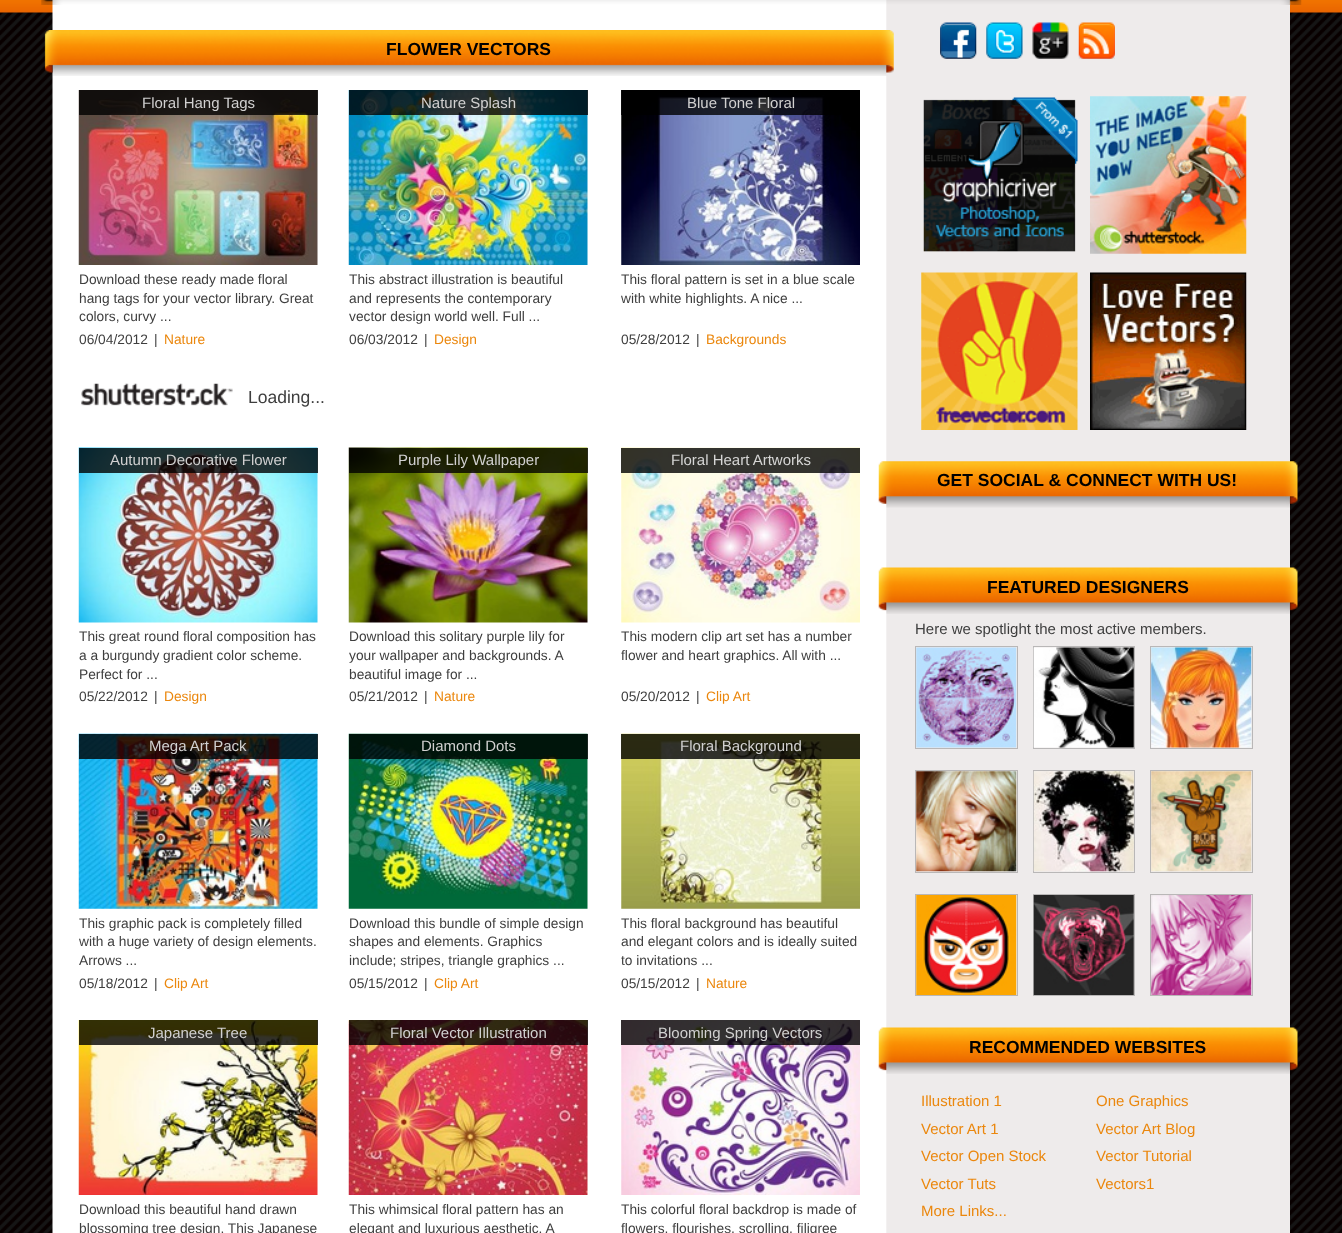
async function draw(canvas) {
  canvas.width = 1342;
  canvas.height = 1233;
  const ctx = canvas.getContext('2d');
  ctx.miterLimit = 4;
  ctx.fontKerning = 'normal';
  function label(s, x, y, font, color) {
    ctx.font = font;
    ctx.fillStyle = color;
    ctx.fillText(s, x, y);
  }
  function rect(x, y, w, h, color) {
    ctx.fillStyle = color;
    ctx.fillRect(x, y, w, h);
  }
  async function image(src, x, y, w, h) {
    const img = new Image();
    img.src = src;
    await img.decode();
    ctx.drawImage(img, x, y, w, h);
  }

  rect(0, 0, 1342, 1233, '#fff');
  await image('assets/img1.png', 0, 12, 1342, 1221);
  await image('assets/img2.png', 0, 0, 1342, 13);
  await image('assets/img3.png', 41, 0, 1261, 5);
  await image('assets/img4.png', 52, 5, 1238, 1228);
  await image('assets/img5.png', 44, 30, 850, 46);
  label('FLOWER VECTORS', 386, 55, 'bold 17.5px Liberation Sans', '#000');
  await image('assets/img6.png', 78, 90, 240, 175);
  rect(79, 90, 239, 25, '#000000cc');
  label('Floral Hang Tags', 142, 108, '15px Liberation Sans', '#d1d0d0');
  label('Download these ready made floral', 79, 284, '13.75px Liberation Sans', '#3e3e3e');
  label('hang tags for your vector library. Great', 79, 303, '13.75px Liberation Sans', '#3e3e3e');
  label('colors, curvy ...', 79, 321, '13.75px Liberation Sans', '#3e3e3e');
  label('06/04/2012', 79, 344, '13.75px Liberation Sans', '#3e3e3e');
  label('|', 154, 344, '13.75px Liberation Sans', '#3e3e3e');
  label('Nature', 164, 344, '13.75px Liberation Sans', '#eb870d');
  await image('assets/img7.png', 348, 90, 240, 175);
  rect(349, 90, 239, 25, '#000000cc');
  label('Nature Splash', 421, 108, '15px Liberation Sans', '#d1d0d0');
  label('This abstract illustration is beautiful', 349, 284, '13.75px Liberation Sans', '#3e3e3e');
  label('and represents the contemporary', 349, 303, '13.75px Liberation Sans', '#3e3e3e');
  label('vector design world well. Full ...', 349, 321, '13.75px Liberation Sans', '#3e3e3e');
  label('06/03/2012', 349, 344, '13.75px Liberation Sans', '#3e3e3e');
  label('|', 424, 344, '13.75px Liberation Sans', '#3e3e3e');
  label('Design', 434, 344, '13.75px Liberation Sans', '#eb870d');
  await image('assets/img8.png', 621, 90, 239, 175);
  rect(621, 90, 220, 25, '#000000cc');
  label('Blue Tone Floral', 687, 108, '15px Liberation Sans', '#d1d0d0');
  label('This floral pattern is set in a blue scale', 621, 284, '13.75px Liberation Sans', '#3e3e3e');
  label('with white highlights. A nice ...', 621, 303, '13.75px Liberation Sans', '#3e3e3e');
  label('05/28/2012', 621, 344, '13.75px Liberation Sans', '#3e3e3e');
  label('|', 696, 344, '13.75px Liberation Sans', '#3e3e3e');
  label('Backgrounds', 706, 344, '13.75px Liberation Sans', '#eb870d');
  await image('assets/img9.png', 81, 383, 152, 23);
  label('Loading...', 248, 403, '17.5px Liberation Sans', '#3e3e3e');
  await image('assets/img10.png', 78, 447, 240, 176);
  rect(79, 448, 239, 25, '#000000cc');
  label('Autumn Decorative Flower', 110, 465, '15px Liberation Sans', '#d1d0d0');
  label('This great round floral composition has', 79, 641, '13.75px Liberation Sans', '#3e3e3e');
  label('a a burgundy gradient color scheme.', 79, 660, '13.75px Liberation Sans', '#3e3e3e');
  label('Perfect for ...', 79, 679, '13.75px Liberation Sans', '#3e3e3e');
  label('05/22/2012', 79, 701, '13.75px Liberation Sans', '#3e3e3e');
  label('|', 154, 701, '13.75px Liberation Sans', '#3e3e3e');
  label('Design', 164, 701, '13.75px Liberation Sans', '#eb870d');
  await image('assets/img11.png', 348, 447, 240, 176);
  rect(349, 448, 239, 25, '#000000cc');
  label('Purple Lily Wallpaper', 398, 465, '15px Liberation Sans', '#d1d0d0');
  label('Download this solitary purple lily for', 349, 641, '13.75px Liberation Sans', '#3e3e3e');
  label('your wallpaper and backgrounds. A', 349, 660, '13.75px Liberation Sans', '#3e3e3e');
  label('beautiful image for ...', 349, 679, '13.75px Liberation Sans', '#3e3e3e');
  label('05/21/2012', 349, 701, '13.75px Liberation Sans', '#3e3e3e');
  label('|', 424, 701, '13.75px Liberation Sans', '#3e3e3e');
  label('Nature', 434, 701, '13.75px Liberation Sans', '#eb870d');
  await image('assets/img12.png', 621, 447, 239, 176);
  rect(621, 448, 239, 25, '#000000cc');
  label('Floral Heart Artworks', 671, 465, '15px Liberation Sans', '#d6d6d5');
  label('This modern clip art set has a number', 621, 641, '13.75px Liberation Sans', '#3e3e3e');
  label('flower and heart graphics. All with ...', 621, 660, '13.75px Liberation Sans', '#3e3e3e');
  label('05/20/2012', 621, 701, '13.75px Liberation Sans', '#3e3e3e');
  label('|', 696, 701, '13.75px Liberation Sans', '#3e3e3e');
  label('Clip Art', 706, 701, '13.75px Liberation Sans', '#eb870d');
  await image('assets/img13.png', 78, 733, 240, 176);
  rect(79, 734, 239, 25, '#000000cc');
  label('Mega Art Pack', 149, 751, '15px Liberation Sans', '#d1d0d0');
  label('This graphic pack is completely filled', 79, 928, '13.75px Liberation Sans', '#3e3e3e');
  label('with a huge variety of design elements.', 79, 946, '13.75px Liberation Sans', '#3e3e3e');
  label('Arrows ...', 79, 965, '13.75px Liberation Sans', '#3e3e3e');
  label('05/18/2012', 79, 988, '13.75px Liberation Sans', '#3e3e3e');
  label('|', 154, 988, '13.75px Liberation Sans', '#3e3e3e');
  label('Clip Art', 164, 988, '13.75px Liberation Sans', '#eb870d');
  await image('assets/img14.png', 348, 733, 240, 176);
  rect(349, 734, 239, 25, '#000000cc');
  label('Diamond Dots', 421, 751, '15px Liberation Sans', '#d1d0d0');
  label('Download this bundle of simple design', 349, 928, '13.75px Liberation Sans', '#3e3e3e');
  label('shapes and elements. Graphics', 349, 946, '13.75px Liberation Sans', '#3e3e3e');
  label('include; stripes, triangle graphics ...', 349, 965, '13.75px Liberation Sans', '#3e3e3e');
  label('05/15/2012', 349, 988, '13.75px Liberation Sans', '#3e3e3e');
  label('|', 424, 988, '13.75px Liberation Sans', '#3e3e3e');
  label('Clip Art', 434, 988, '13.75px Liberation Sans', '#eb870d');
  await image('assets/img15.png', 621, 733, 239, 176);
  rect(621, 734, 239, 25, '#000000cc');
  label('Floral Background', 680, 751, '15px Liberation Sans', '#d1d0d0');
  label('This floral background has beautiful', 621, 928, '13.75px Liberation Sans', '#3e3e3e');
  label('and elegant colors and is ideally suited', 621, 946, '13.75px Liberation Sans', '#3e3e3e');
  label('to invitations ...', 621, 965, '13.75px Liberation Sans', '#3e3e3e');
  label('05/15/2012', 621, 988, '13.75px Liberation Sans', '#3e3e3e');
  label('|', 696, 988, '13.75px Liberation Sans', '#3e3e3e');
  label('Nature', 706, 988, '13.75px Liberation Sans', '#eb870d');
  await image('assets/img16.png', 78, 1020, 240, 175);
  rect(79, 1020, 239, 25, '#000000cc');
  label('Japanese Tree', 148, 1038, '15px Liberation Sans', '#d1d0d0');
  label('Download this beautiful hand drawn', 79, 1214, '13.75px Liberation Sans', '#3e3e3e');
  label('blossoming tree design. This Japanese', 79, 1233, '13.75px Liberation Sans', '#3e3e3e');
  await image('assets/img17.png', 348, 1020, 240, 175);
  rect(349, 1020, 239, 25, '#000000cc');
  label('Floral Vector Illustration', 390, 1038, '15px Liberation Sans', '#d1d0d0');
  label('This whimsical floral pattern has an', 349, 1214, '13.75px Liberation Sans', '#3e3e3e');
  label('elegant and luxurious aesthetic. A', 349, 1233, '13.75px Liberation Sans', '#3e3e3e');
  await image('assets/img18.png', 621, 1020, 239, 175);
  rect(621, 1020, 239, 25, '#000000cc');
  label('Blooming Spring Vectors', 658, 1038, '15px Liberation Sans', '#d1d0d0');
  label('This colorful floral backdrop is made of', 621, 1214, '13.75px Liberation Sans', '#3e3e3e');
  label('flowers, flourishes, scrolling, filigree', 621, 1233, '13.75px Liberation Sans', '#3e3e3e');
  await image('assets/img19.png', 940, 22, 37, 37);
  await image('assets/img20.png', 986, 22, 37, 37);
  await image('assets/img21.png', 1032, 22, 37, 37);
  await image('assets/img22.png', 1078, 22, 37, 37);
  await image('assets/img23.png', 923, 97, 155, 155);
  await image('assets/img24.png', 1090, 96, 157, 158);
  await image('assets/img25.png', 921, 272, 157, 158);
  await image('assets/img26.png', 1090, 272, 157, 158);
  await image('assets/img27.png', 878, 461, 420, 47);
  label('GET SOCIAL & CONNECT WITH US!', 937, 486, 'bold 17.5px Liberation Sans', '#000');
  await image('assets/img28.png', 878, 567, 420, 47);
  label('FEATURED DESIGNERS', 987, 593, 'bold 17.5px Liberation Sans', '#000');
  label('Here we spotlight the most active members.', 915, 634, '15px Liberation Sans', '#3e3e3e');
  ctx.strokeStyle = '#b9b7b7';
  ctx.strokeRect(915.5, 646.5, 102, 102);
  ctx.strokeRect(1033.5, 646.5, 101, 102);
  ctx.strokeRect(1150.5, 646.5, 102, 102);
  await image('assets/img29.png', 916, 647, 101, 101);
  await image('assets/img30.png', 1033, 647, 101, 101);
  await image('assets/img31.png', 1151, 647, 101, 101);
  ctx.strokeRect(915.5, 770.5, 102, 102);
  ctx.strokeRect(1033.5, 770.5, 101, 102);
  ctx.strokeRect(1150.5, 770.5, 102, 102);
  await image('assets/img32.png', 916, 771, 101, 101);
  await image('assets/img33.png', 1033, 771, 101, 101);
  await image('assets/img34.png', 1151, 771, 101, 101);
  ctx.strokeRect(915.5, 894.5, 102, 101);
  ctx.strokeRect(1033.5, 894.5, 101, 101);
  ctx.strokeRect(1150.5, 894.5, 102, 101);
  await image('assets/img35.png', 916, 895, 101, 100);
  await image('assets/img36.png', 1033, 895, 101, 100);
  await image('assets/img37.png', 1151, 895, 101, 100);
  await image('assets/img28.png', 878, 1027, 420, 47);
  label('RECOMMENDED WEBSITES', 969, 1053, 'bold 17.5px Liberation Sans', '#000');
  label('Illustration 1', 921, 1106, '15px Liberation Sans', '#eb870d');
  label('One Graphics', 1096, 1106, '15px Liberation Sans', '#eb870d');
  label('Vector Art 1', 921, 1134, '15px Liberation Sans', '#eb870d');
  label('Vector Art Blog', 1096, 1134, '15px Liberation Sans', '#eb870d');
  label('Vector Open Stock', 921, 1161, '15px Liberation Sans', '#eb870d');
  label('Vector Tutorial', 1096, 1161, '15px Liberation Sans', '#eb870d');
  label('Vector Tuts', 921, 1189, '15px Liberation Sans', '#eb870d');
  label('Vectors1', 1096, 1189, '15px Liberation Sans', '#eb870d');
  label('More Links...', 921, 1216, '15px Liberation Sans', '#eb870d');
}

draw(document.querySelector('canvas'));
